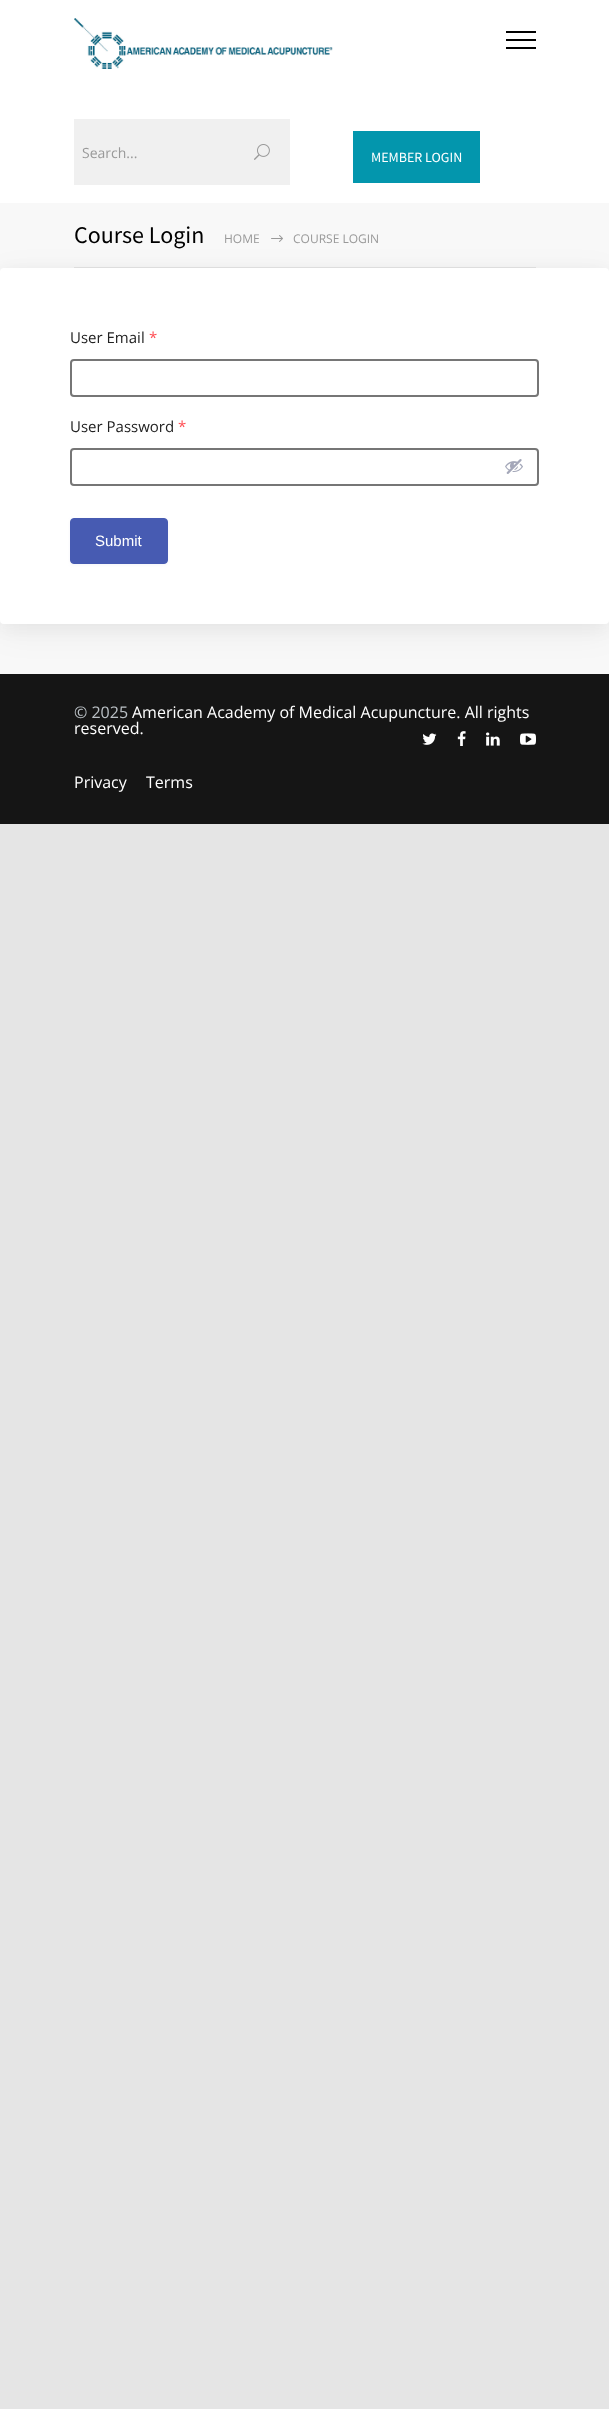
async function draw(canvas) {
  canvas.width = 609;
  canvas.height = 2409;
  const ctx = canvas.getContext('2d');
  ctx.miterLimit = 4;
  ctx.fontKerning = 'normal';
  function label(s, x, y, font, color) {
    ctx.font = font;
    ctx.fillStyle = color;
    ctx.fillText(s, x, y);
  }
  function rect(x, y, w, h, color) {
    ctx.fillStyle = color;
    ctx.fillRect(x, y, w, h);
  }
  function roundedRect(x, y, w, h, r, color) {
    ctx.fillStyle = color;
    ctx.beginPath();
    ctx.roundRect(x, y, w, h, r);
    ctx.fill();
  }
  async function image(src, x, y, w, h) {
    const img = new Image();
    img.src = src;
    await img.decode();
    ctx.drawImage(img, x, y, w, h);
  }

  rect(0, 0, 609, 2409, '#e5e5e5');
  rect(0, 203, 609, 471, '#f8f8f8');
  rect(0, 0, 609, 203, '#fff');
  await image('assets/img1.png', 74, 18, 259, 51);
  rect(506, 31, 30, 2, '#000');
  rect(506, 39, 30, 2, '#000');
  rect(506, 47, 30, 2, '#000');
  rect(74, 119, 216, 66, '#f0f0f0');
  label('Search...', 82, 158, '14px Open Sans', '#999');
  await image('assets/img2.png', 254, 144, 16, 16);
  rect(353, 131, 127, 52, '#0396ad');
  label('MEMBER LOGIN', 371, 162, '14px Source Sans Pro', '#fff');
  rect(74, 267, 462, 1, '#e5e5e5');
  rect(0, 674, 609, 150, '#151515');
  ctx.fillStyle = '#11111a0d';
  ctx.filter = 'blur(16px)';
  ctx.beginPath();
  ctx.roundRect(0, 276, 609, 356, 4);
  ctx.fill();
  ctx.filter = 'none';
  ctx.filter = 'blur(8px)';
  ctx.beginPath();
  ctx.roundRect(0, 272, 609, 356, 4);
  ctx.fill();
  ctx.filter = 'none';
  label('Course Login', 74, 243, '24px Source Sans Pro', '#000');
  label('HOME', 224, 243, '12px Open Sans', '#999');
  await image('assets/img3.png', 271, 235, 12, 7);
  label('COURSE LOGIN', 293, 243, '12px Open Sans', '#999');
  roundedRect(0, 268, 609, 356, 4, '#fff');
  label('User Email', 70, 343, '15px Open Sans', '#222');
  label('*', 149, 343, '15px Open Sans', '#ff4f55');
  ctx.beginPath();
  ctx.roundRect(71, 360, 467, 36, 3);
  ctx.strokeStyle = '#767676';
  ctx.lineWidth = 2;
  ctx.stroke();
  label('User Password', 70, 432, '15px Open Sans', '#222');
  label('*', 178, 432, '15px Open Sans', '#ff4f55');
  ctx.beginPath();
  ctx.roundRect(71, 449, 467, 36, 3);
  ctx.stroke();
  await image('assets/img4.png', 505, 459, 18, 15);
  ctx.fillStyle = '#b6bbcf26';
  ctx.filter = 'blur(1.5px)';
  ctx.beginPath();
  ctx.roundRect(70, 519, 98, 46, 4);
  ctx.fill();
  ctx.filter = 'none';
  ctx.fillStyle = '#475bb2';
  ctx.beginPath();
  ctx.roundRect(70.5, 518.5, 97, 45, 3.5);
  ctx.fill();
  ctx.strokeStyle = '#475bb2';
  ctx.lineWidth = 1;
  ctx.stroke();
  label('Submit', 95, 546, '15px Liberation Sans', '#fff');
  label('© 2025', 74, 718, '16px Open Sans', '#bac0c5');
  label('American Academy of Medical Acupuncture. All rights', 132, 718, '16px Open Sans', '#fff');
  label('reserved.', 74, 734, '16px Open Sans', '#fff');
  await image('assets/img5.png', 422, 733, 15, 12);
  await image('assets/img6.png', 457, 731, 9, 15);
  await image('assets/img7.png', 486, 732, 14, 14);
  await image('assets/img8.png', 520, 733, 16, 12);
  label('Privacy', 74, 788, '16px Open Sans', '#fff');
  label('Terms', 146, 788, '16px Open Sans', '#fff');
}

draw(document.querySelector('canvas'));
